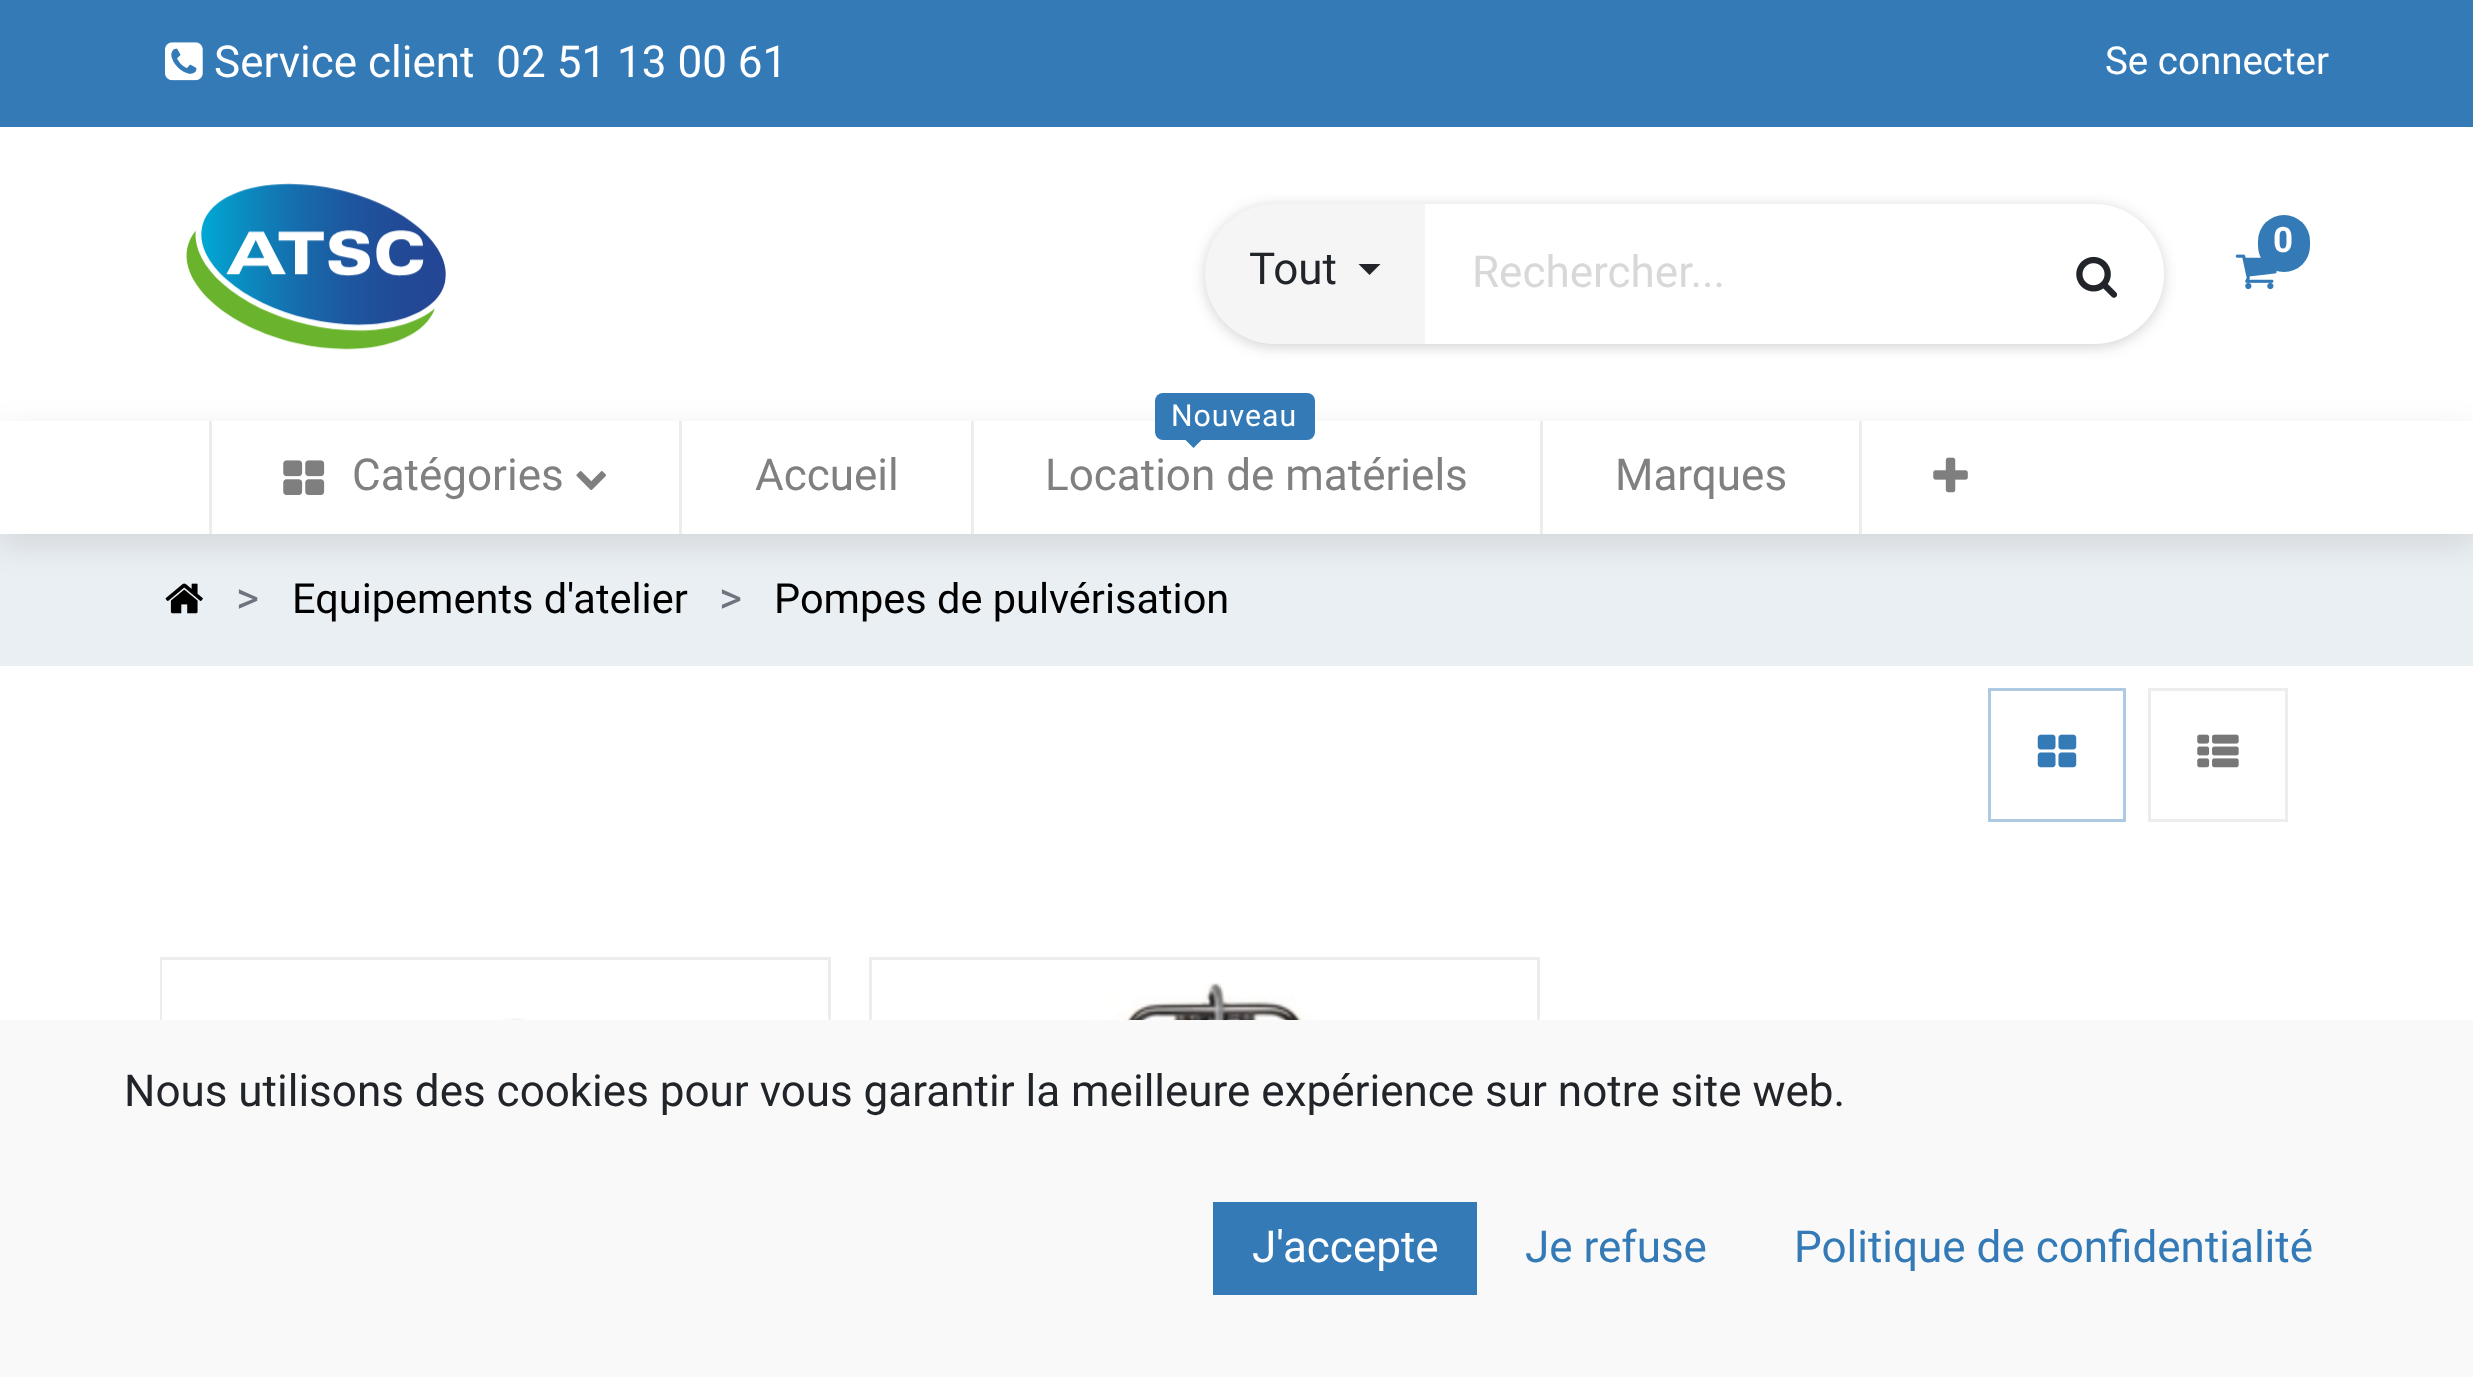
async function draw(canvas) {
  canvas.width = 2473;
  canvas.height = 1377;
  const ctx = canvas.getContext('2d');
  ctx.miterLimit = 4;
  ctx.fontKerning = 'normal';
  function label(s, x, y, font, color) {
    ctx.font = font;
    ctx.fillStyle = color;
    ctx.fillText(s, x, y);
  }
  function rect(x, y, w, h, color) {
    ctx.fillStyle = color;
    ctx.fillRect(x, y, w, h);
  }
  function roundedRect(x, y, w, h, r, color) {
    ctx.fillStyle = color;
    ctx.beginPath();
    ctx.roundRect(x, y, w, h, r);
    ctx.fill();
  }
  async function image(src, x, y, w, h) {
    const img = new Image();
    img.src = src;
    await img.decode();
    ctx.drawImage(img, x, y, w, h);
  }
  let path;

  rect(0, 0, 2473, 1377, '#fff');
  rect(0, 0, 2473, 127, '#337ab7');
  await image('assets/img1.png', 165, 42, 38, 39);
  label('Service client  02 51 13 00 61', 214, 77, '44px Roboto', '#fff');
  label('Se connecter', 2105, 74, '38.5px Roboto', '#fff');
  await image('assets/img2.png', 186, 183, 260, 167);
  await image('assets/img3.png', 2235, 254, 42, 36);
  roundedRect(2258, 215, 52, 57, 26, '#337ab7');
  label('0', 2273, 252, 'bold 35px Roboto', '#fff');
  ctx.fillStyle = '#20212433';
  ctx.filter = 'blur(7px)';
  ctx.beginPath();
  ctx.roundRect(1205, 206, 959, 141, 70.5);
  ctx.fill();
  ctx.filter = 'none';
  ctx.fillStyle = '#f5f5f5';
  ctx.beginPath();
  ctx.roundRect(1205, 204, 220, 140, [70, 0, 0, 70]);
  ctx.fill();
  label('Tout', 1249, 284, '44px Roboto', '#212529');
  path = new Path2D('M1358.5 264H1380.5L1369.5 275Z');
  ctx.fill(path);
  ctx.fillStyle = '#fff';
  ctx.beginPath();
  ctx.roundRect(1425, 204, 739, 140, [0, 70, 70, 0]);
  ctx.fill();
  label('Rechercher...', 1472, 287, '44px Roboto', '#d8d8d8');
  await image('assets/img4.png', 2076, 256, 42, 42);
  rect(0, 534, 2473, 132, '#eaeff3');
  await image('assets/img8.png', 165, 583, 38, 31);
  ctx.fillStyle = '#0000001a';
  ctx.filter = 'blur(16.5px)';
  ctx.beginPath();
  ctx.rect(0, 432, 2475, 113);
  ctx.fill();
  ctx.filter = 'none';
  rect(0, 421, 2473, 113, '#fff');
  rect(209, 421, 3, 113, '#ededed');
  await image('assets/img5.png', 283, 460, 42, 35);
  label('Catégories', 352, 490, '44px Roboto', '#808080');
  await image('assets/img6.png', 576, 471, 30, 19);
  rect(679, 421, 3, 113, '#ededed');
  label('Accueil', 755, 490, '44px Roboto', '#808080');
  rect(971, 421, 3, 113, '#ededed');
  roundedRect(1155, 393, 160, 47, 8, '#337ab7');
  ctx.letterSpacing = '1px';
  label('Nouveau', 1171, 426, '30.25px Roboto', '#fff');
  ctx.fillStyle = '#337ab7';
  path = new Path2D('M1182.5 437H1204.5L1193.5 448Z');
  ctx.fill(path);
  ctx.letterSpacing = '0px';
  label('Location de matériels', 1045, 490, '44px Roboto', '#808080');
  rect(1540, 421, 3, 113, '#ededed');
  label('Marques', 1615, 490, '44px Roboto', '#808080');
  rect(1859, 421, 3, 113, '#ededed');
  await image('assets/img7.png', 1933, 457, 35, 36);
  label('>', 236, 613, '44px Roboto', '#6c757d');
  label('Equipements d\'atelier', 292, 613, '41.5px Roboto', '#000');
  label('>', 719, 613, '44px Roboto', '#6c757d');
  label('Pompes de pulvérisation', 774, 613, '41.5px Roboto', '#000');
  ctx.strokeStyle = '#adcae2';
  ctx.lineWidth = 3;
  ctx.strokeRect(1989.5, 689.5, 135, 131);
  await image('assets/img9.png', 2037, 734, 40, 34);
  ctx.strokeStyle = '#ededed';
  ctx.strokeRect(2149.5, 689.5, 137, 131);
  await image('assets/img10.png', 2197, 734, 42, 34);
  ctx.strokeRect(161.5, 958.5, 668, 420);
  rect(162, 960, 1, 60, '#fff');
  await image('assets/img11.png', 222, 1018, 544, 2);
  ctx.strokeRect(870.5, 958.5, 668, 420);
  await image('assets/img12.png', 1076, 982, 257, 38);
  rect(0, 1020, 2473, 357, '#f9f9f9');
  label('Nous utilisons des cookies pour vous garantir la meilleure expérience sur notre site web.', 124, 1106, '44px Roboto', '#212529');
  rect(1213, 1202, 264, 93, '#337ab7');
  label('J\'accepte', 1252, 1262, '44px Roboto', '#fff');
  label('Je refuse', 1525, 1262, '44px Roboto', '#337ab7');
  label('Politique de confidentialité', 1794, 1262, '44px Roboto', '#337ab7');
}

draw(document.querySelector('canvas'));
